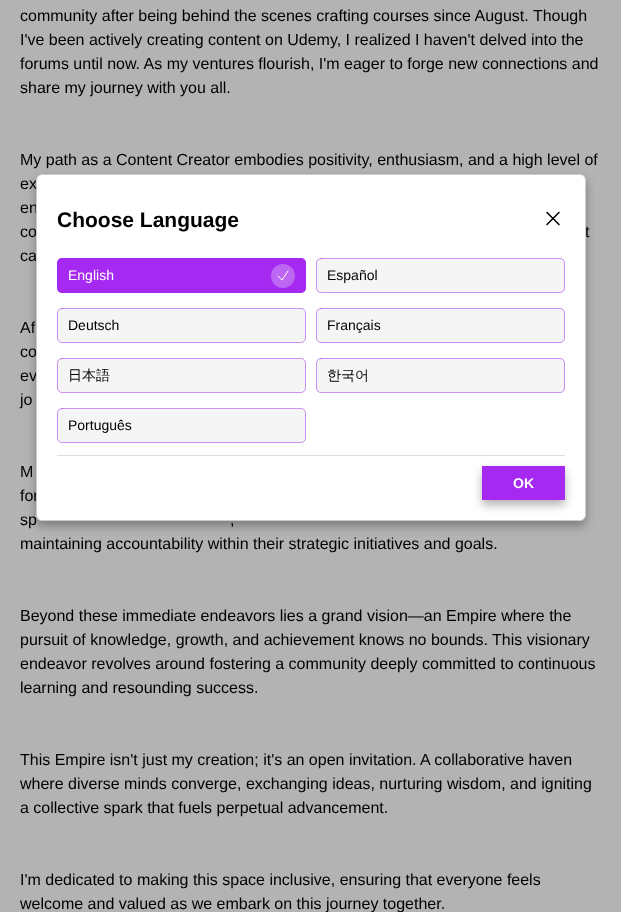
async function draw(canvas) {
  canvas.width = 621;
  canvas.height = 912;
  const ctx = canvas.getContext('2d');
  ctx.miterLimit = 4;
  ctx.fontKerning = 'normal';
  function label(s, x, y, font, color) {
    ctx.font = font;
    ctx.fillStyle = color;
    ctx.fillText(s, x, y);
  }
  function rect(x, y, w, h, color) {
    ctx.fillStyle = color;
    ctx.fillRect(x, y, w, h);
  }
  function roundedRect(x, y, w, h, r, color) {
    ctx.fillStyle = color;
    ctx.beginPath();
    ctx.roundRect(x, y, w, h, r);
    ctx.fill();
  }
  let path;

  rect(0, 0, 621, 912, '#b3b3b3');
  label('community after being behind the scenes crafting courses since August. Though', 20, 21, '16px Liberation Sans', '#000');
  label('I\'ve been actively creating content on Udemy, I realized I haven\'t delved into the', 20, 45, '16px Liberation Sans', '#000');
  label('forums until now. As my ventures flourish, I\'m eager to forge new connections and', 20, 69, '16px Liberation Sans', '#000');
  label('share my journey with you all.', 20, 93, '16px Liberation Sans', '#000');
  label('My path as a Content Creator embodies positivity, enthusiasm, and a high level of', 20, 165, '16px Liberation Sans', '#000');
  label('ex', 20, 189, '16px Liberation Sans', '#000');
  label('en', 20, 213, '16px Liberation Sans', '#000');
  label('co', 20, 237, '16px Liberation Sans', '#000');
  label('t', 585, 237, '16px Liberation Sans', '#000');
  label('ca', 20, 261, '16px Liberation Sans', '#000');
  label('Af', 20, 333, '16px Liberation Sans', '#000');
  label('co', 20, 357, '16px Liberation Sans', '#000');
  label('ev', 20, 381, '16px Liberation Sans', '#000');
  label('jo', 20, 405, '16px Liberation Sans', '#000');
  label('M', 20, 477, '16px Liberation Sans', '#000');
  label('for', 20, 501, '16px Liberation Sans', '#000');
  label('sp', 20, 525, '16px Liberation Sans', '#000');
  label(',', 230, 525, '16px Liberation Sans', '#000');
  label('maintaining accountability within their strategic initiatives and goals.', 20, 549, '16px Liberation Sans', '#000');
  label('Beyond these immediate endeavors lies a grand vision—an Empire where the', 20, 621, '16px Liberation Sans', '#000');
  label('pursuit of knowledge, growth, and achievement knows no bounds. This visionary', 20, 645, '16px Liberation Sans', '#000');
  label('endeavor revolves around fostering a community deeply committed to continuous', 20, 669, '16px Liberation Sans', '#000');
  label('learning and resounding success.', 20, 693, '16px Liberation Sans', '#000');
  label('This Empire isn\'t just my creation; it\'s an open invitation. A collaborative haven', 20, 765, '16px Liberation Sans', '#000');
  label('where diverse minds converge, exchanging ideas, nurturing wisdom, and igniting', 20, 789, '16px Liberation Sans', '#000');
  label('a collective spark that fuels perpetual advancement.', 20, 813, '16px Liberation Sans', '#000');
  label('I\'m dedicated to making this space inclusive, ensuring that everyone feels', 20, 885, '16px Liberation Sans', '#000');
  label('welcome and valued as we embark on this journey together.', 20, 909, '16px Liberation Sans', '#000');
  ctx.fillStyle = '#0000004d';
  ctx.filter = 'blur(5px)';
  ctx.beginPath();
  ctx.roundRect(36, 179, 550, 347, 6);
  ctx.fill();
  ctx.filter = 'none';
  ctx.fillStyle = '#fff';
  ctx.beginPath();
  ctx.roundRect(36.5, 174.5, 549, 346, 5.5);
  ctx.fill();
  ctx.strokeStyle = '#ccc';
  ctx.stroke();
  label('Choose Language', 57, 227, 'bold 21px Liberation Sans', '#000');
  path = new Path2D('M547 224.5L559 212.5M547 212.5L559 224.5');
  ctx.strokeStyle = '#000';
  ctx.lineWidth = 1.5;
  ctx.lineCap = 'round';
  ctx.lineJoin = 'round';
  ctx.stroke(path);
  roundedRect(57, 258, 249, 35, 5, '#a529f0');
  ctx.beginPath();
  ctx.roundRect(57.5, 258.5, 248, 34, 4.5);
  ctx.strokeStyle = '#a529f080';
  ctx.lineWidth = 1;
  ctx.lineJoin = 'miter';
  ctx.stroke();
  label('English', 68, 280, '14px Liberation Sans', '#fff');
  ctx.fillStyle = '#bc66f1';
  ctx.beginPath();
  ctx.arc(283, 276, 12, 0, 2 * Math.PI);
  ctx.fill();
  path = new Path2D('M278 276L282 280L288 271');
  ctx.strokeStyle = '#fff';
  ctx.lineJoin = 'round';
  ctx.stroke(path);
  roundedRect(316, 258, 249, 35, 5, '#f5f5f6');
  ctx.beginPath();
  ctx.roundRect(316.5, 258.5, 248, 34, 4.5);
  ctx.strokeStyle = '#a529f080';
  ctx.lineJoin = 'miter';
  ctx.stroke();
  label('Español', 327, 280, '14px Liberation Sans', '#000');
  roundedRect(57, 308, 249, 35, 5, '#f5f5f6');
  ctx.beginPath();
  ctx.roundRect(57.5, 308.5, 248, 34, 4.5);
  ctx.stroke();
  label('Deutsch', 68, 330, '14px Liberation Sans', '#000');
  roundedRect(316, 308, 249, 35, 5, '#f5f5f6');
  ctx.beginPath();
  ctx.roundRect(316.5, 308.5, 248, 34, 4.5);
  ctx.stroke();
  label('Français', 327, 330, '14px Liberation Sans', '#000');
  roundedRect(57, 358, 249, 35, 5, '#f5f5f6');
  ctx.beginPath();
  ctx.roundRect(57.5, 358.5, 248, 34, 4.5);
  ctx.stroke();
  label('日本語', 68, 380, '500 14px WenQuanYi Zen Hei', '#000');
  roundedRect(316, 358, 249, 35, 5, '#f5f5f6');
  ctx.beginPath();
  ctx.roundRect(316.5, 358.5, 248, 34, 4.5);
  ctx.stroke();
  label('한국어', 327, 380, '500 14px WenQuanYi Zen Hei', '#000');
  roundedRect(57, 408, 249, 35, 5, '#f5f5f6');
  ctx.beginPath();
  ctx.roundRect(57.5, 408.5, 248, 34, 4.5);
  ctx.stroke();
  label('Português', 68, 430, '14px Liberation Sans', '#000');
  rect(57, 455, 508, 1, '#ddd');
  ctx.fillStyle = '#0000004d';
  ctx.filter = 'blur(5px)';
  ctx.beginPath();
  ctx.rect(482, 471, 83, 34);
  ctx.fill();
  ctx.filter = 'none';
  rect(482, 466, 83, 34, '#a529f0');
  label('OK', 513, 488, 'bold 14px Liberation Sans', '#fff');
}

draw(document.querySelector('canvas'));
